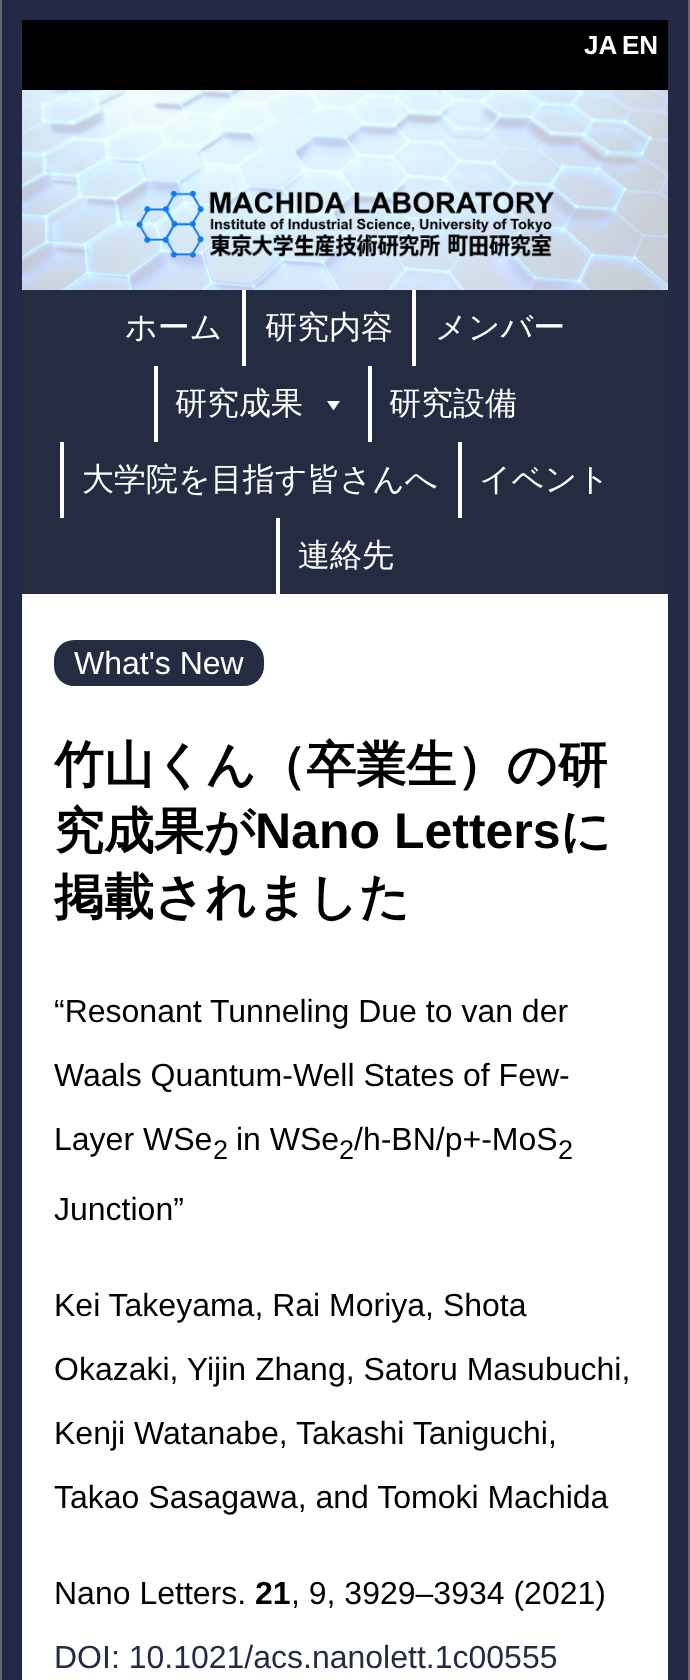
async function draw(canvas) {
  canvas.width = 690;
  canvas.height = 1680;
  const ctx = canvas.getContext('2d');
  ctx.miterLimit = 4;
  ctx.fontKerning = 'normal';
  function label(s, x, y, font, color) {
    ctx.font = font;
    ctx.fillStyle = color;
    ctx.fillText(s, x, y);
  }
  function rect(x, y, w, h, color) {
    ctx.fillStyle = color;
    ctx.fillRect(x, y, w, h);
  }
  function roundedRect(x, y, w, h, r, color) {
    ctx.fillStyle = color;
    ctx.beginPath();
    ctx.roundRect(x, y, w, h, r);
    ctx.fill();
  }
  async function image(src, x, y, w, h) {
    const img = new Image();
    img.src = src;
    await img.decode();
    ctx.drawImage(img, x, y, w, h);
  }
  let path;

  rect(0, 0, 690, 1680, '#232946');
  rect(688, 0, 2, 1680, '#666');
  rect(0, 0, 2, 1680, '#666');
  rect(22, 594, 646, 1086, '#fff');
  await image('assets/img1.png', 22, 90, 646, 200);
  rect(22, 20, 646, 70, '#000');
  label('JA', 584, 54, 'bold 26px Liberation Sans', '#fff');
  label('EN', 622, 54, 'bold 26px Liberation Sans', '#fff');
  await image('assets/img2.png', 136, 190, 418, 68);
  rect(22, 290, 646, 304, '#242c42');
  label('ホーム', 125, 338, '500 32px WenQuanYi Zen Hei', '#fff');
  rect(242, 290, 4, 76, '#fff');
  label('研究内容', 265, 338, '500 32px WenQuanYi Zen Hei', '#fff');
  rect(412, 290, 4, 76, '#fff');
  label('メンバー', 435, 338, '500 32px WenQuanYi Zen Hei', '#fff');
  rect(154, 366, 4, 76, '#fff');
  label('研究成果', 175, 414, '500 32px WenQuanYi Zen Hei', '#fff');
  path = new Path2D('M340 401L333.5 410.5L327 401Z');
  ctx.fill(path);
  rect(368, 366, 4, 76, '#fff');
  label('研究設備', 389, 414, '500 32px WenQuanYi Zen Hei', '#fff');
  rect(60, 442, 4, 76, '#fff');
  label('大学院を目指す皆さんへ', 82, 490, '500 32px WenQuanYi Zen Hei', '#fff');
  rect(458, 442, 4, 76, '#fff');
  label('イベント', 479, 490, '500 32px WenQuanYi Zen Hei', '#fff');
  rect(276, 518, 4, 76, '#fff');
  label('連絡先', 298, 566, '500 32px WenQuanYi Zen Hei', '#fff');
  roundedRect(54, 640, 210, 46, 20, '#242c42');
  label('What\'s New', 74, 674, '32px Liberation Sans', '#fff');
  label('竹山くん（卒業生）の研', 54, 782, 'bold 50px WenQuanYi Zen Hei', '#000');
  label('究成果が', 54, 848, 'bold 50px WenQuanYi Zen Hei', '#000');
  label('Nano Letters', 255, 848, 'bold 50px Liberation Sans', '#000');
  label('に', 560, 848, 'bold 50px WenQuanYi Zen Hei', '#000');
  label('掲載されました', 54, 914, 'bold 50px WenQuanYi Zen Hei', '#000');
  label('“Resonant Tunneling Due to van der', 54, 1022, '32px Liberation Sans', '#000');
  label('Waals Quantum-Well States of Few-', 54, 1086, '32px Liberation Sans', '#000');
  label('Layer WSe', 54, 1150, '32px Liberation Sans', '#000');
  label('2', 213, 1159, '27px Liberation Sans', '#000');
  label('in WSe', 236, 1150, '32px Liberation Sans', '#000');
  label('2', 339, 1159, '27px Liberation Sans', '#000');
  label('/h-BN/p+-MoS', 354, 1150, '32px Liberation Sans', '#000');
  label('2', 558, 1159, '27px Liberation Sans', '#000');
  label('Junction”', 54, 1220, '32px Liberation Sans', '#000');
  label('Kei Takeyama, Rai Moriya, Shota', 54, 1316, '32px Liberation Sans', '#000');
  label('Okazaki, Yijin Zhang, Satoru Masubuchi,', 54, 1380, '32px Liberation Sans', '#000');
  label('Kenji Watanabe, Takashi Taniguchi,', 54, 1444, '32px Liberation Sans', '#000');
  label('Takao Sasagawa, and Tomoki Machida', 54, 1508, '32px Liberation Sans', '#000');
  label('Nano Letters.', 54, 1604, '32px Liberation Sans', '#000');
  label('21', 255, 1604, 'bold 32px Liberation Sans', '#000');
  label(', 9, 3929–3934 (2021)', 291, 1604, '32px Liberation Sans', '#000');
  label('DOI: 10.1021/acs.nanolett.1c00555', 54, 1668, '32px Liberation Sans', '#242c42');
}

draw(document.querySelector('canvas'));
